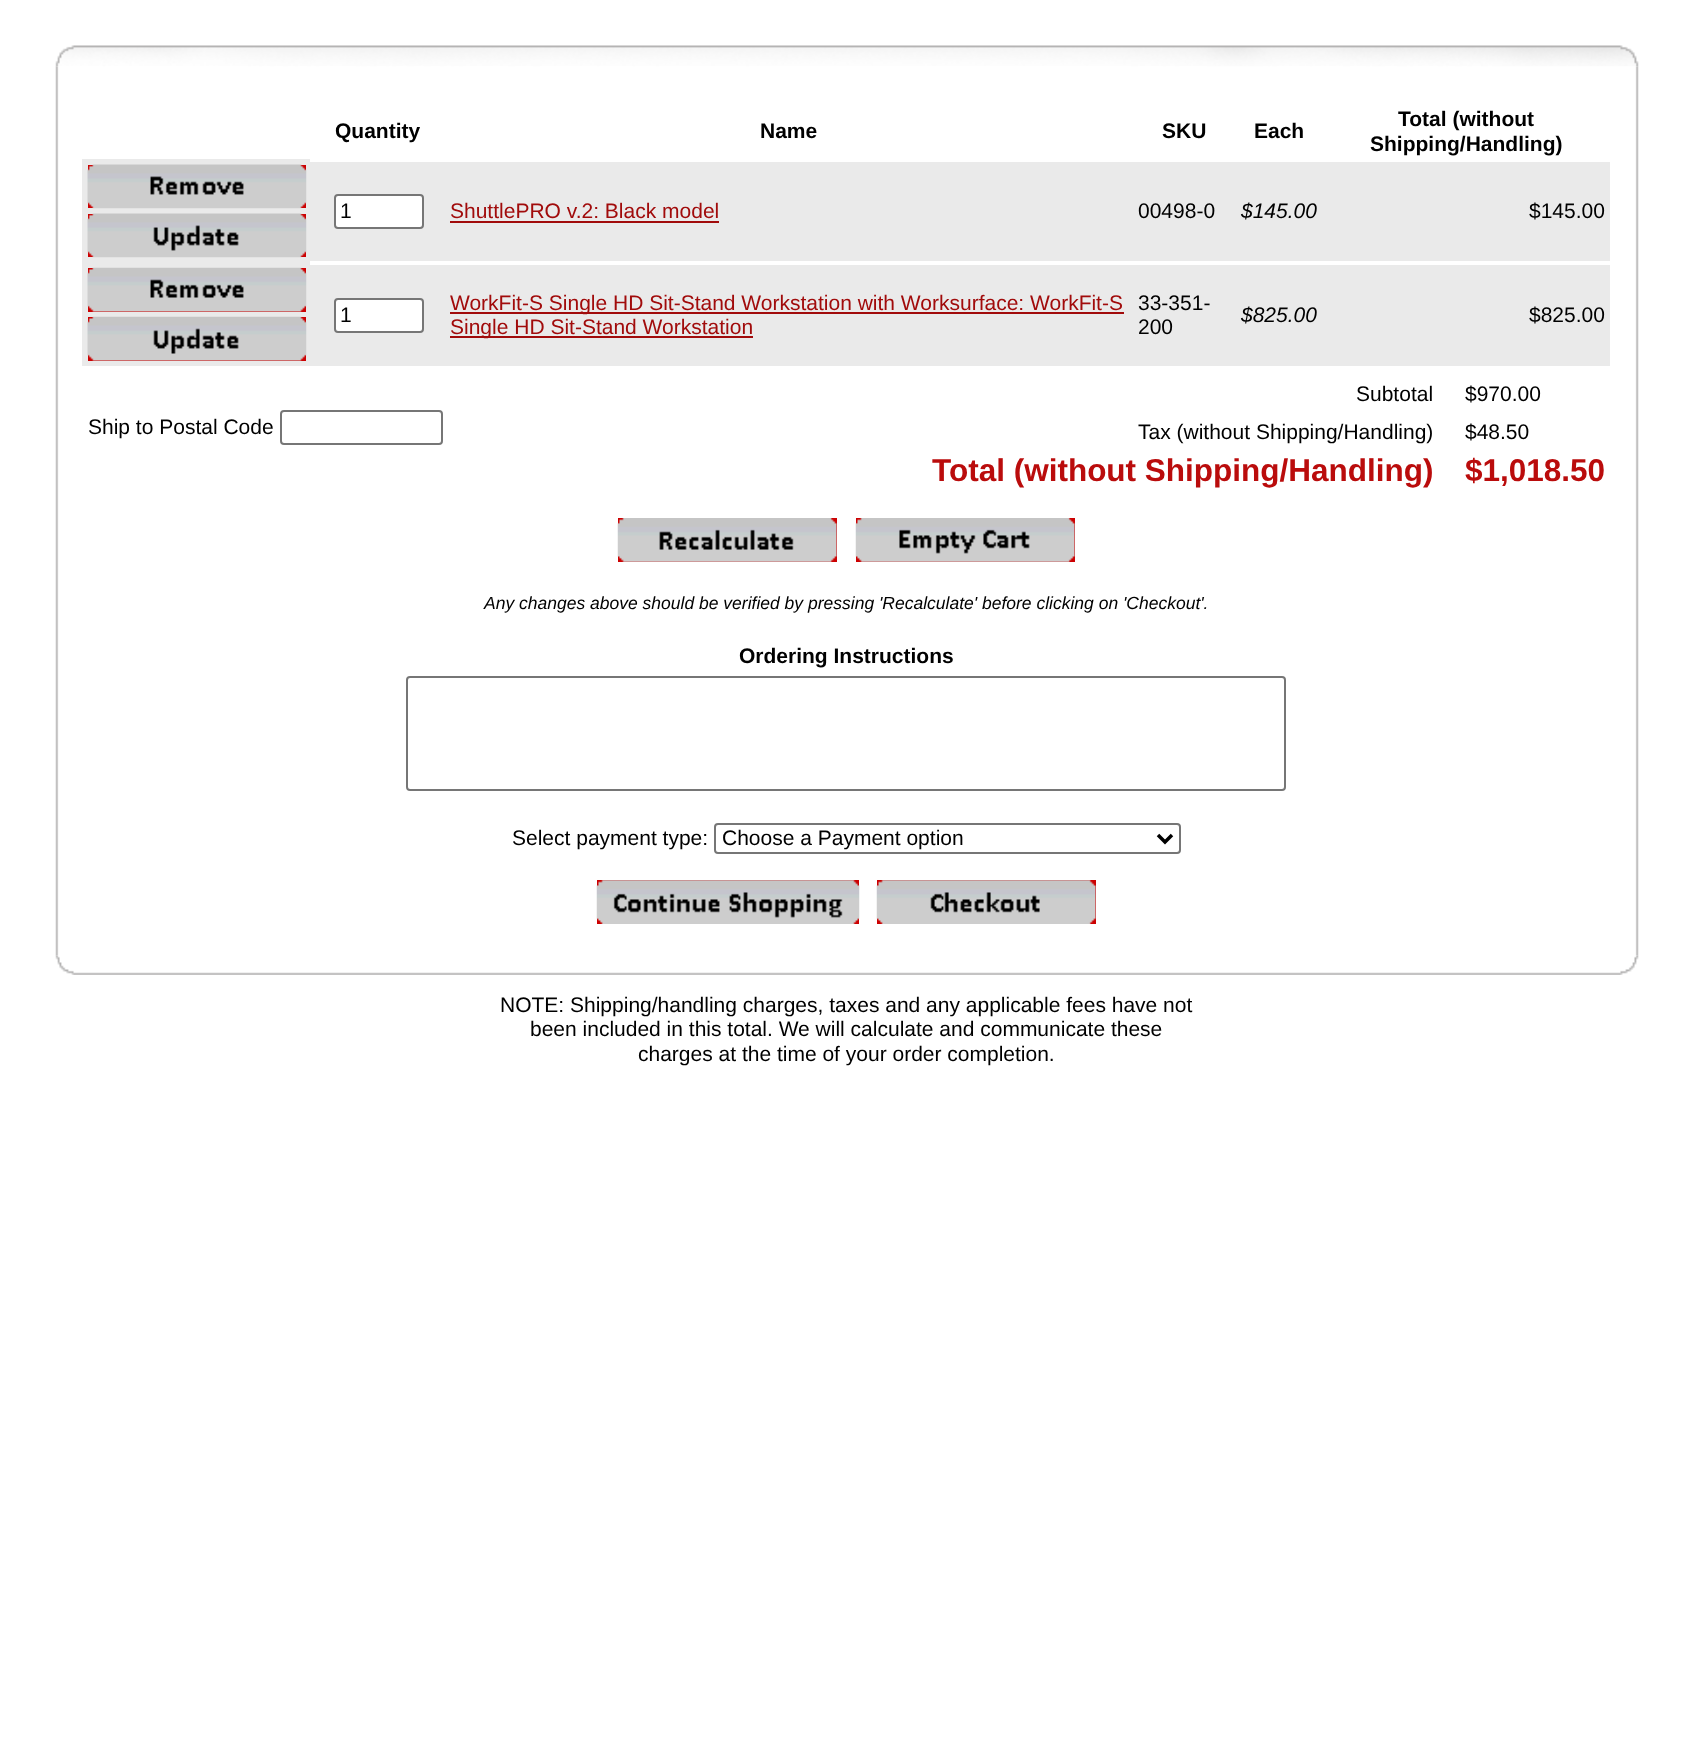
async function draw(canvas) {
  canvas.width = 1691;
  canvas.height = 1742;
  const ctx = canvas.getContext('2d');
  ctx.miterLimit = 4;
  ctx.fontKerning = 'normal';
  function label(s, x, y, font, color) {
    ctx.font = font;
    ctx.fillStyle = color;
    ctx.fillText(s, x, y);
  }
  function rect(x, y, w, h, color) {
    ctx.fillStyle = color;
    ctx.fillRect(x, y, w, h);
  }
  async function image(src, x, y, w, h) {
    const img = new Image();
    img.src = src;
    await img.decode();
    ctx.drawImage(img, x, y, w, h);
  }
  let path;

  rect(0, 0, 1691, 1742, '#fff');
  await image('assets/img1.png', 55, 45, 1584, 22);
  await image('assets/img2.png', 55, 66, 1584, 890);
  label('Quantity', 335, 138, 'bold 21px Liberation Sans', '#000');
  label('Name', 760, 138, 'bold 21px Liberation Sans', '#000');
  label('SKU', 1162, 138, 'bold 21px Liberation Sans', '#000');
  label('Each', 1254, 138, 'bold 21px Liberation Sans', '#000');
  label('Total (without', 1398, 126, 'bold 21px Liberation Sans', '#000');
  label('Shipping/Handling)', 1370, 151, 'bold 21px Liberation Sans', '#000');
  rect(82, 159, 230, 207, '#eaeaea');
  rect(88, 165, 218, 43, '#cc0001');
  await image('assets/img3.png', 87, 164, 220, 45);
  rect(88, 214, 218, 43, '#cc0001');
  await image('assets/img4.png', 87, 213, 220, 45);
  rect(312, 162, 1298, 99, '#eaeaea');
  rect(310, 159, 2, 3, '#fff');
  ctx.beginPath();
  ctx.roundRect(335, 195, 88, 33, 3);
  ctx.fill();
  ctx.strokeStyle = '#767676';
  ctx.lineWidth = 2;
  ctx.stroke();
  label('1', 340, 218, '21px Liberation Sans', '#000');
  label('ShuttlePRO v.2: Black model', 450, 218, '21px Liberation Sans', '#a10b0b');
  rect(450, 221, 269, 2, '#a10b0b');
  label('00498-0', 1138, 218, '21px Liberation Sans', '#000');
  label('$145.00', 1241, 218, 'italic 21px Liberation Sans', '#000');
  label('$145.00', 1529, 218, '21px Liberation Sans', '#000');
  rect(88, 268, 218, 44, '#cc0001');
  await image('assets/img5.png', 87, 267, 220, 45);
  rect(88, 317, 218, 44, '#cc0001');
  await image('assets/img6.png', 87, 316, 220, 45);
  rect(312, 265, 1298, 101, '#eaeaea');
  rect(310, 261, 2, 4, '#fff');
  ctx.beginPath();
  ctx.roundRect(335, 299, 88, 33, 3);
  ctx.fill();
  ctx.stroke();
  label('1', 340, 322, '21px Liberation Sans', '#000');
  rect(450, 312, 674, 2, '#a10b0b');
  label('WorkFit-S Single HD Sit-Stand Workstation with Worksurface: WorkFit-S', 450, 310, '21px Liberation Sans', '#a10b0b');
  rect(450, 336, 303, 2, '#a10b0b');
  label('Single HD Sit-Stand Workstation', 450, 334, '21px Liberation Sans', '#a10b0b');
  label('33-351-', 1138, 310, '21px Liberation Sans', '#000');
  label('200', 1138, 334, '21px Liberation Sans', '#000');
  label('$825.00', 1241, 322, 'italic 21px Liberation Sans', '#000');
  label('$825.00', 1529, 322, '21px Liberation Sans', '#000');
  label('Ship to Postal Code', 88, 434, '21px Liberation Sans', '#000');
  ctx.beginPath();
  ctx.roundRect(281, 411, 161, 33, 3);
  ctx.stroke();
  label('Subtotal', 1356, 401, '21px Liberation Sans', '#000');
  label('$970.00', 1465, 401, '21px Liberation Sans', '#000');
  label('Tax (without Shipping/Handling)', 1138, 439, '21px Liberation Sans', '#000');
  label('$48.50', 1465, 439, '21px Liberation Sans', '#000');
  label('Total (without Shipping/Handling)', 932, 481, 'bold 31.5px Liberation Sans', '#ba0c0c');
  label('$1,018.50', 1465, 481, 'bold 31.5px Liberation Sans', '#ba0c0c');
  rect(618, 518, 219, 44, '#cc0001');
  await image('assets/img7.png', 617, 518, 220, 44);
  rect(856, 518, 219, 44, '#cc0001');
  await image('assets/img8.png', 855, 518, 220, 44);
  label('Any changes above should be verified by pressing \'Recalculate\' before clicking on \'Checkout\'.', 484, 609, 'italic 17.5px Liberation Sans', '#000');
  label('Ordering Instructions', 739, 663, 'bold 21px Liberation Sans', '#000');
  ctx.beginPath();
  ctx.roundRect(407, 677, 878, 113, 3);
  ctx.stroke();
  label('Select payment type:', 512, 845, '21px Liberation Sans', '#000');
  ctx.beginPath();
  ctx.roundRect(715, 824, 465, 29, 3);
  ctx.stroke();
  path = new Path2D('M1158 835L1165 842L1172 835');
  ctx.strokeStyle = '#000';
  ctx.lineWidth = 3.5;
  ctx.stroke(path);
  label('Choose a Payment option', 722, 845, '21px Liberation Sans', '#000');
  rect(597, 880, 262, 44, '#cc0001');
  await image('assets/img9.png', 596, 880, 264, 44);
  rect(877, 880, 219, 44, '#cc0001');
  await image('assets/img10.png', 876, 880, 220, 44);
  await image('assets/img11.png', 55, 955, 1584, 20);
  label('NOTE: Shipping/handling charges, taxes and any applicable fees have not', 500, 1012, '21px Liberation Sans', '#000');
  label('been included in this total. We will calculate and communicate these', 530, 1036, '21px Liberation Sans', '#000');
  label('charges at the time of your order completion.', 638, 1061, '21px Liberation Sans', '#000');
}

draw(document.querySelector('canvas'));
